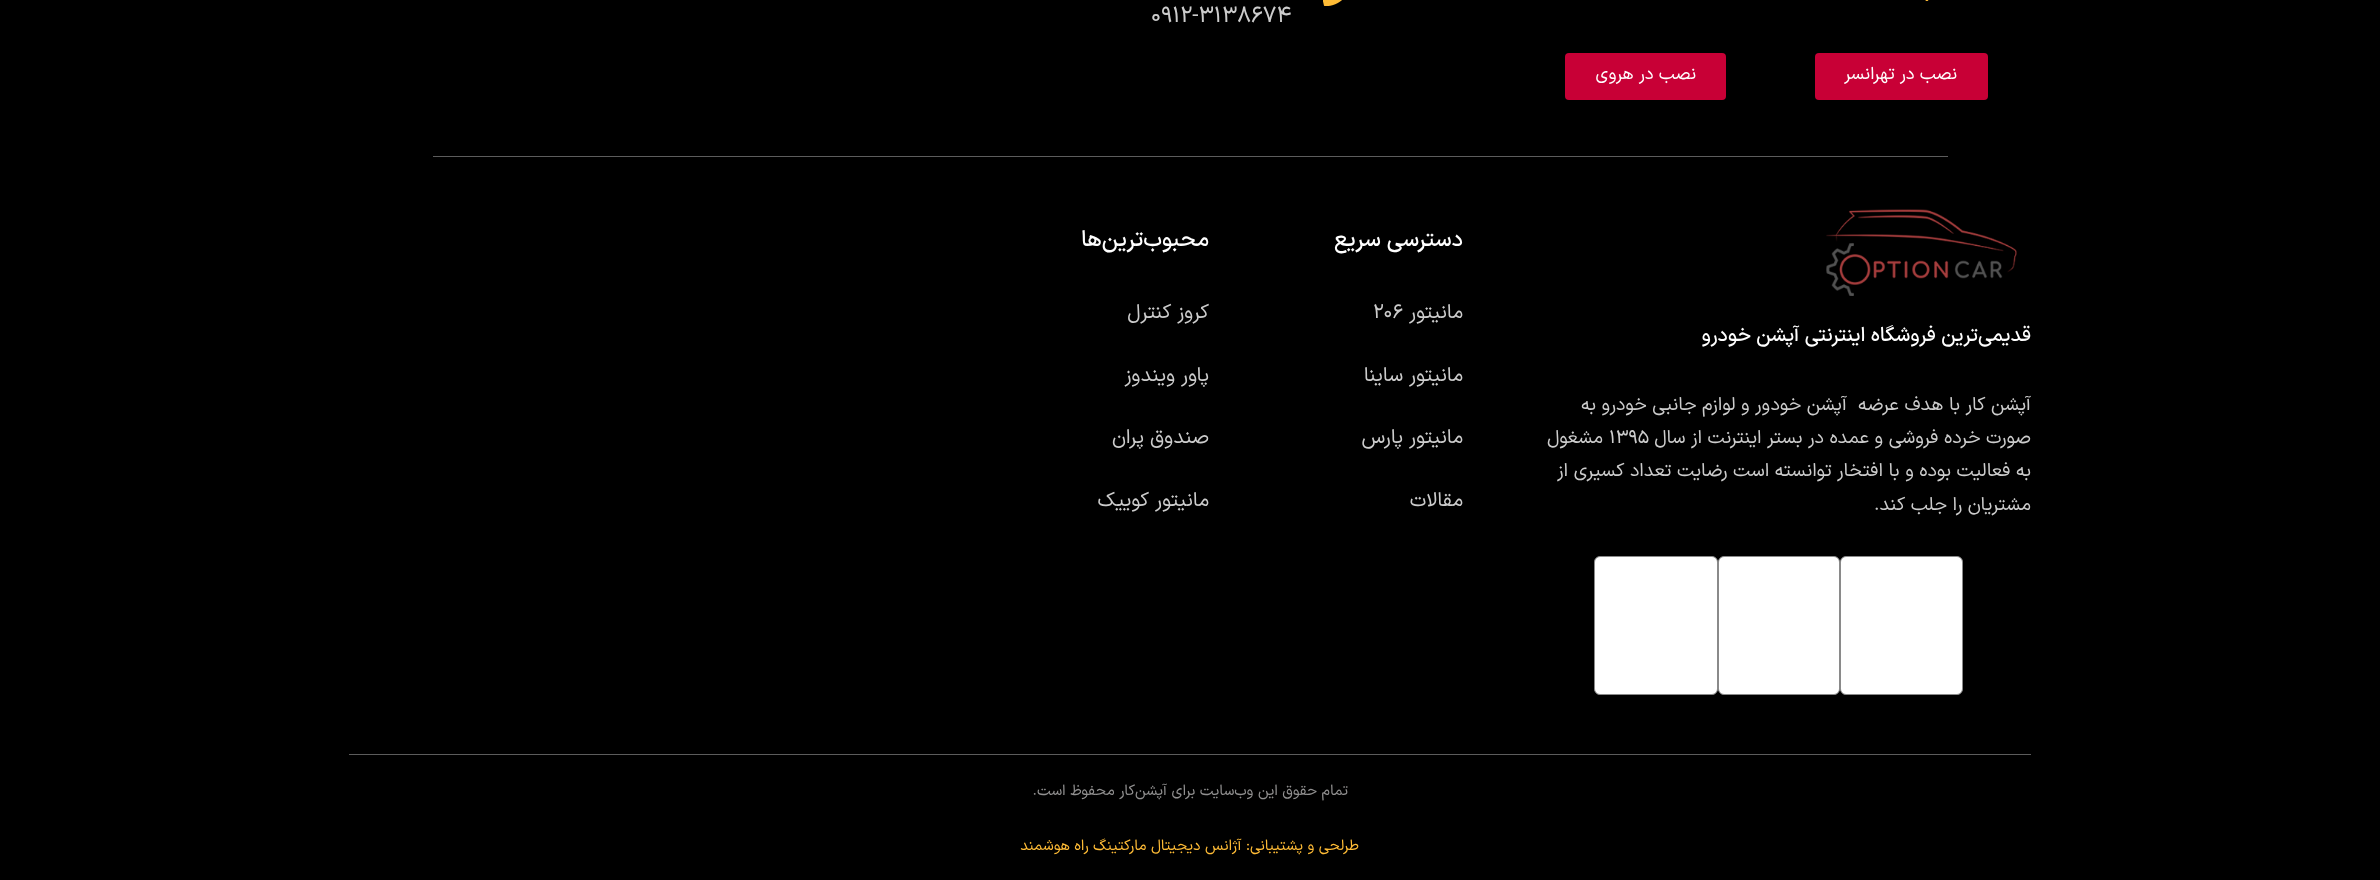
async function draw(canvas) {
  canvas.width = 2380;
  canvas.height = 880;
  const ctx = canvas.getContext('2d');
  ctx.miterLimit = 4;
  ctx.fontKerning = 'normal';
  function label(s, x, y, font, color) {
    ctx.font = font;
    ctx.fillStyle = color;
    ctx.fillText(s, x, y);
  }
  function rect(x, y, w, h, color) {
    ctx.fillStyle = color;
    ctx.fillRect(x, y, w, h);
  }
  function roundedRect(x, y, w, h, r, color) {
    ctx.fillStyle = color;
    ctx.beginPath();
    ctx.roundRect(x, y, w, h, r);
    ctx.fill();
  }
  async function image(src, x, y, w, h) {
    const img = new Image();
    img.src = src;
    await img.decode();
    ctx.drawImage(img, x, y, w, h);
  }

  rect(0, 0, 2380, 880, '#000');
  await image('assets/img1.png', 1323, 0, 19, 6);
  label('0912-3138674', 1151, 22, '22.5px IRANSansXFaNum', '#ccc');
  await image('assets/img2.png', 1925, 0, 4, 1);
  roundedRect(1815, 53, 173, 47, 4, '#c80036');
  ctx.direction = 'rtl';
  label('نصب در تهرانسر', 1957, 79, '17.5px IRANSansXFaNum', '#fff');
  roundedRect(1565, 53, 161, 47, 4, '#c80036');
  label('نصب در هروی', 1696, 79, '17.5px IRANSansXFaNum', '#fff');
  rect(433, 156, 1515, 1, '#5c5c5c');
  await image('assets/img3.png', 1826, 209, 191, 87);
  label('قدیمی‌ترین فروشگاه اینترنتی آپشن خودرو', 2031, 341, '500 20px IRANSansXFaNum', '#fff');
  label('آپشن کار با هدف عرضه  آپشن خودور و لوازم جانبی خودرو به', 2031, 410, '18.75px IRANSansXFaNum', '#ccc');
  label('صورت خرده فروشی و عمده در بستر اینترنت از سال', 2031, 443, '18.75px IRANSansXFaNum', '#ccc');
  ctx.direction = 'ltr';
  label('۱۳۹۵', 1609, 443, '18.75px IRANSansXFaNum', '#ccc');
  ctx.direction = 'rtl';
  label('مشغول', 1603, 443, '18.75px IRANSansXFaNum', '#ccc');
  label('به فعالیت بوده و با افتخار توانسته است رضایت تعداد کسیری از', 2031, 476, '18.75px IRANSansXFaNum', '#ccc');
  label('مشتریان را جلب کند.', 2031, 510, '18.75px IRANSansXFaNum', '#ccc');
  ctx.fillStyle = '#fff';
  ctx.beginPath();
  ctx.roundRect(1840.5, 556.5, 122, 138, 5.5);
  ctx.fill();
  ctx.strokeStyle = '#8a8a8a';
  ctx.stroke();
  ctx.beginPath();
  ctx.roundRect(1718.5, 556.5, 121, 138, 5.5);
  ctx.fill();
  ctx.stroke();
  ctx.beginPath();
  ctx.roundRect(1594.5, 556.5, 123, 138, 5.5);
  ctx.fill();
  ctx.stroke();
  label('دسترسی سریع', 1463, 246, '500 22.5px IRANSansXFaNum', '#fff');
  label('مانیتور', 1463, 318, '20px IRANSansXFaNum', '#ccc');
  ctx.direction = 'ltr';
  label('۲۰۶', 1373, 318, '20px IRANSansXFaNum', '#ccc');
  ctx.direction = 'rtl';
  label('مانیتور ساینا', 1463, 381, '20px IRANSansXFaNum', '#ccc');
  label('مانیتور پارس', 1463, 443, '20px IRANSansXFaNum', '#ccc');
  label('مقالات', 1463, 506, '20px IRANSansXFaNum', '#ccc');
  label('محبوب‌ترین‌ها', 1209, 246, '500 22.5px IRANSansXFaNum', '#fff');
  label('کروز کنترل', 1209, 318, '20px IRANSansXFaNum', '#ccc');
  label('پاور ویندوز', 1209, 381, '20px IRANSansXFaNum', '#ccc');
  label('صندوق پران', 1209, 443, '20px IRANSansXFaNum', '#ccc');
  label('مانیتور کوییک', 1209, 506, '20px IRANSansXFaNum', '#ccc');
  rect(349, 754, 1682, 1, '#5c5c5c');
  label('تمام حقوق اين وب‌سايت برای آپشن‌کار محفوظ است.', 1348, 795, '15px IRANSansXFaNum', '#919090');
  label('طرلحی و پشتیبانی: آژانس دیجیتال مارکتینگ راه هوشمند', 1359, 850, '15px IRANSansXFaNum', '#ffbc36');
}

draw(document.querySelector('canvas'));
